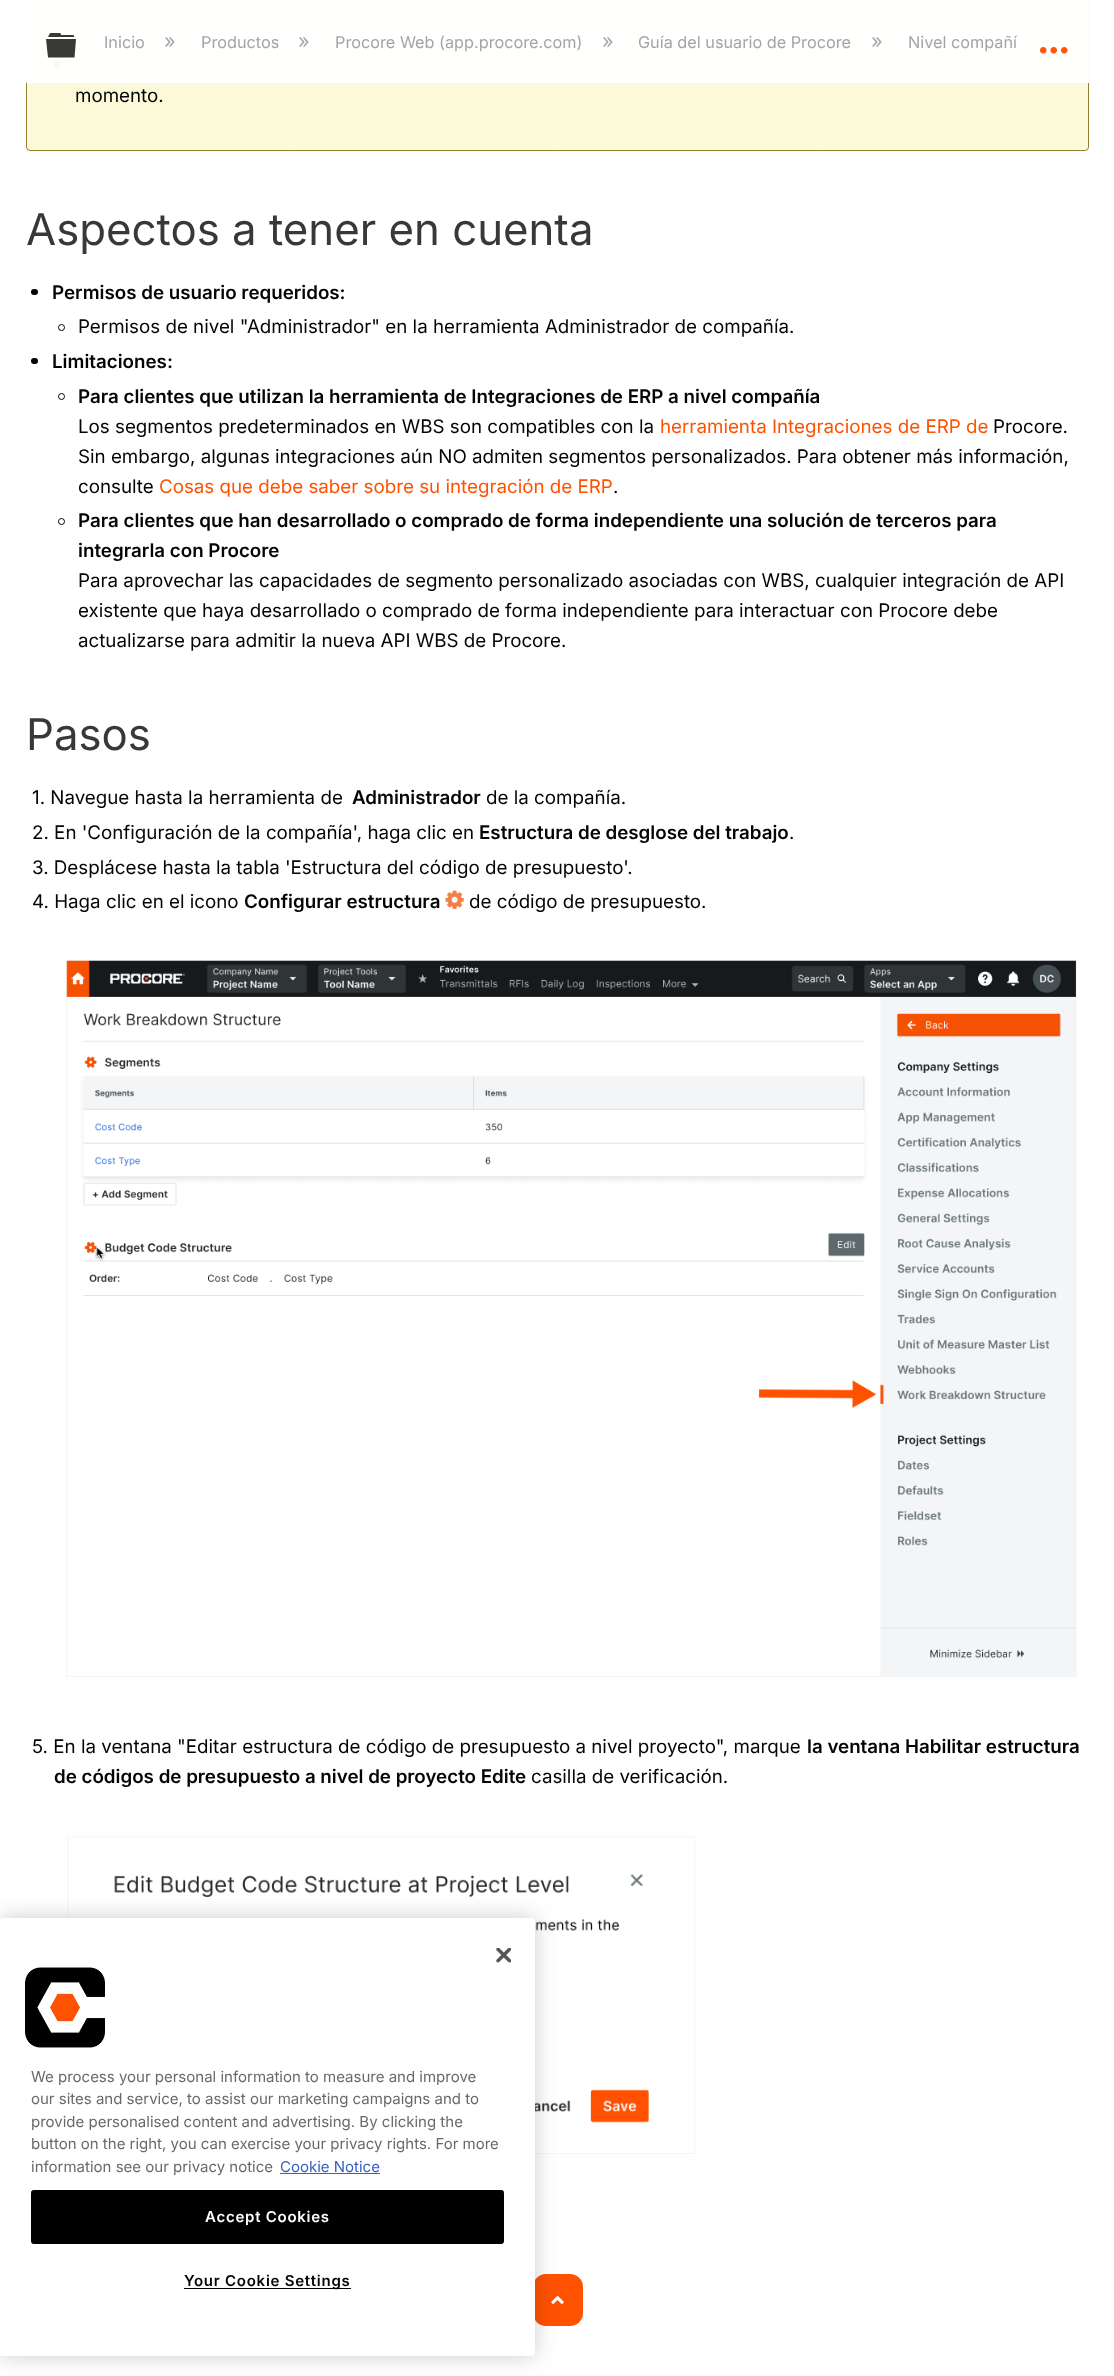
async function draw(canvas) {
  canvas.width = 1114;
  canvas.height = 2376;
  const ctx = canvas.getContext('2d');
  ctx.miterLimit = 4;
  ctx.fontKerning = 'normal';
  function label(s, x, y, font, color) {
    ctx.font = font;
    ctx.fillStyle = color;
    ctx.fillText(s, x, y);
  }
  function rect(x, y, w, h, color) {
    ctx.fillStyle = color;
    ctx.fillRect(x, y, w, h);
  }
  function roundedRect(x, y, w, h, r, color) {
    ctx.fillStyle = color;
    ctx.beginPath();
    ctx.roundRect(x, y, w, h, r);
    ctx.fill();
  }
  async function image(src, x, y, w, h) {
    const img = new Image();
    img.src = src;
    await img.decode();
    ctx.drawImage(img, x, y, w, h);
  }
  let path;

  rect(0, 0, 1114, 2376, '#fff');
  ctx.fillStyle = '#fdfad9';
  ctx.beginPath();
  ctx.roundRect(26.5, -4.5, 1062, 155, 3.5);
  ctx.fill();
  ctx.strokeStyle = '#967e33';
  ctx.stroke();
  roundedRect(54, 61, 6, 7, 3, '#040404');
  rect(26, 0, 1063, 83, '#fffffff7');
  ctx.fillStyle = '#393938';
  path = new Path2D('M46 39H76L74.5 57.5H48ZM73.5 35L74.5 37H48L50 33H60.5L61 35Z');
  ctx.fill(path);
  label('Inicio', 104, 48, '16.25px Inter', '#a2a5a6');
  label('»', 164, 48, '20px Inter', '#a2a5a6');
  label('Productos', 201, 48, '16.25px Inter', '#a2a5a6');
  label('»', 298, 48, '20px Inter', '#a2a5a6');
  label('Procore Web (app.procore.com)', 335, 48, '16.25px Inter', '#a2a5a6');
  label('»', 602, 48, '20px Inter', '#a2a5a6');
  label('Guía del usuario de Procore', 638, 48, '16.25px Inter', '#a2a5a6');
  label('»', 871, 48, '20px Inter', '#a2a5a6');
  label('Nivel compañí', 908, 48, '16.25px Inter', '#a2a5a6');
  await image('assets/img1.png', 1040, 47, 28, 7);
  label('momento.', 75, 102, '18.75px Inter', '#040404');
  label('Aspectos a tener en cuenta', 26, 245, '43.75px Inter', '#383838');
  roundedRect(31, 289, 7, 6, 3, '#040404');
  label('Permisos de usuario requeridos:', 52, 299, '600 18.75px Inter', '#040404');
  ctx.beginPath();
  ctx.arc(61.5, 327.5, 3, 0, 2 * Math.PI);
  ctx.strokeStyle = '#040404';
  ctx.stroke();
  label('Permisos de nivel "Administrador" en la herramienta Administrador de compañía.', 78, 333, '18.75px Inter', '#040404');
  roundedRect(31, 358, 7, 6, 3, '#040404');
  label('Limitaciones:', 52, 368, '600 18.75px Inter', '#040404');
  ctx.beginPath();
  ctx.arc(61.5, 396.5, 3, 0, 2 * Math.PI);
  ctx.stroke();
  label('Para clientes que utilizan la herramienta de Integraciones de ERP a nivel compañía', 78, 403, '600 18.75px Inter', '#040404');
  label('Los segmentos predeterminados en WBS son compatibles con la', 78, 433, '18.75px Inter', '#040404');
  label('herramienta Integraciones de ERP de', 660, 433, '18.75px Inter', '#ff5200');
  label('Procore.', 993, 433, '18.75px Inter', '#040404');
  label('Sin embargo, algunas integraciones aún NO admiten segmentos personalizados. Para obtener más información,', 78, 463, '18.75px Inter', '#040404');
  label('consulte', 78, 493, '18.75px Inter', '#040404');
  label('Cosas que debe saber sobre su integración de ERP', 159, 493, '18.75px Inter', '#ff5200');
  label('.', 613, 493, '18.75px Inter', '#040404');
  ctx.beginPath();
  ctx.arc(61.5, 521.5, 3, 0, 2 * Math.PI);
  ctx.stroke();
  label('Para clientes que han desarrollado o comprado de forma independiente una solución de terceros para', 78, 527, '600 18.75px Inter', '#040404');
  label('integrarla con Procore', 78, 557, '600 18.75px Inter', '#040404');
  label('Para aprovechar las capacidades de segmento personalizado asociadas con WBS, cualquier integración de API', 78, 587, '18.75px Inter', '#040404');
  label('existente que haya desarrollado o comprado de forma independiente para interactuar con Procore debe', 78, 617, '18.75px Inter', '#040404');
  label('actualizarse para admitir la nueva API WBS de Procore.', 78, 647, '18.75px Inter', '#040404');
  label('Pasos', 26, 750, '43.75px Inter', '#383838');
  label('1. Navegue hasta la herramienta de', 32, 804, '18.75px Inter', '#040404');
  label('Administrador', 352, 804, '600 18.75px Inter', '#040404');
  label('de la compañía.', 486, 804, '18.75px Inter', '#040404');
  label('2. En \'Configuración de la compañía\', haga clic en', 32, 839, '18.75px Inter', '#040404');
  label('Estructura de desglose del trabajo', 479, 839, '600 18.75px Inter', '#040404');
  label('.', 789, 839, '18.75px Inter', '#040404');
  label('3. Desplácese hasta la tabla \'Estructura del código de presupuesto\'.', 32, 874, '18.75px Inter', '#040404');
  label('4. Haga clic en el icono', 32, 908, '18.75px Inter', '#040404');
  label('Configurar estructura', 244, 908, '600 18.75px Inter', '#040404');
  await image('assets/img2.png', 445, 890, 19, 19);
  label('de código de presupuesto.', 469, 908, '18.75px Inter', '#040404');
  await image('assets/img3.png', 66, 960, 1011, 717);
  label('5. En la ventana "Editar estructura de código de presupuesto a nivel proyecto", marque', 32, 1753, '18.75px Inter', '#040404');
  label('la ventana Habilitar estructura', 807, 1753, '600 18.75px Inter', '#040404');
  label('de códigos de presupuesto a nivel de proyecto Edite', 54, 1783, '600 18.75px Inter', '#040404');
  label('casilla de verificación.', 531, 1783, '18.75px Inter', '#040404');
  await image('assets/img4.png', 67, 1836, 628, 318);
  roundedRect(533, 2274, 50, 52, 13, '#ff5200');
  await image('assets/img7.png', 551, 2296, 13, 8);
  ctx.fillStyle = '#00000033';
  ctx.filter = 'blur(11px)';
  ctx.beginPath();
  ctx.roundRect(0, 1918, 535, 438, 3);
  ctx.fill();
  ctx.filter = 'none';
  roundedRect(0, 1918, 535, 438, 3, '#fff');
  await image('assets/img5.png', 496, 1948, 15, 15);
  await image('assets/img6.png', 25, 1967, 80, 81);
  label('We process your personal information to measure and improve', 31, 2082, '15px Inter', '#696969');
  label('our sites and service, to assist our marketing campaigns and to', 31, 2104, '15px Inter', '#696969');
  label('provide personalised content and advertising. By clicking the', 31, 2127, '15px Inter', '#696969');
  label('button on the right, you can exercise your privacy rights. For more', 31, 2149, '15px Inter', '#696969');
  label('information see our privacy notice', 31, 2172, '15px Inter', '#696969');
  label('Cookie Notice', 280, 2172, '15px Inter', '#3860be');
  rect(280, 2173, 100, 1, '#3860be');
  ctx.fillStyle = '#000';
  ctx.beginPath();
  ctx.roundRect(31.5, 2190.5, 472, 53, 2);
  ctx.fill();
  ctx.strokeStyle = '#000';
  ctx.stroke();
  ctx.letterSpacing = '0.75px';
  label('Accept Cookies', 205, 2222, '600 15px Inter', '#fff');
  rect(184, 2288, 167, 1, '#000');
  label('Your Cookie Settings', 184, 2286, '600 15px Inter', '#040404');
}

draw(document.querySelector('canvas'));
